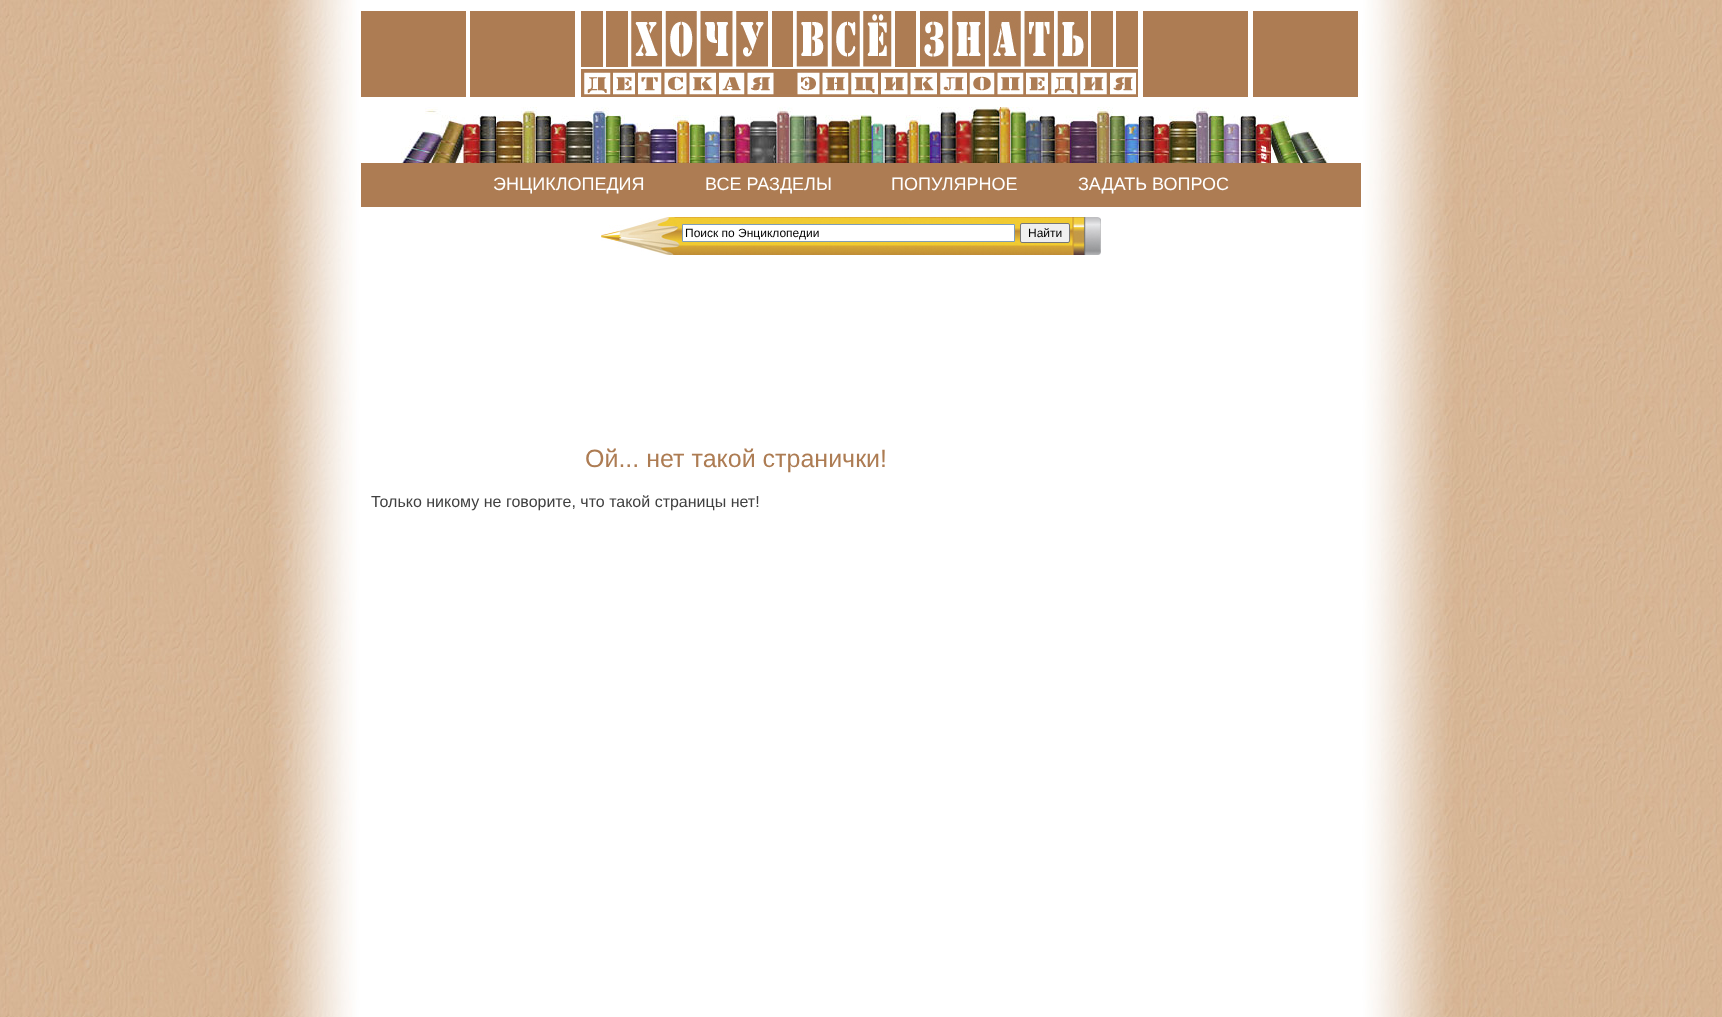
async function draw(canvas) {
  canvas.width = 1722;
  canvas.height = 1017;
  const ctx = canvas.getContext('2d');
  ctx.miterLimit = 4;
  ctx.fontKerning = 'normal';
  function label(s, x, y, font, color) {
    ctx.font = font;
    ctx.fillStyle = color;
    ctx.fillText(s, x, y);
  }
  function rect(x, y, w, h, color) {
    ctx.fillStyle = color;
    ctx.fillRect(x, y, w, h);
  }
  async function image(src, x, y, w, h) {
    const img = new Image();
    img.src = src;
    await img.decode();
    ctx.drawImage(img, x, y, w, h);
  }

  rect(0, 0, 1722, 1017, '#fff');
  await image('assets/img1.png', 0, 0, 1722, 1017);
  rect(361, 11, 105, 86, '#ad7c53');
  rect(470, 11, 105, 86, '#ad7c53');
  await image('assets/img2.png', 581, 11, 557, 86);
  rect(1143, 11, 105, 86, '#ad7c53');
  rect(1253, 11, 105, 86, '#ad7c53');
  rect(361, 163, 1000, 44, '#ad7c53');
  await image('assets/img3.png', 361, 107, 1000, 56);
  label('ЭНЦИКЛОПЕДИЯ', 493, 190, '18px Liberation Sans', '#fff');
  label('ВСЕ РАЗДЕЛЫ', 705, 190, '18px Liberation Sans', '#fff');
  label('ПОПУЛЯРНОЕ', 891, 190, '18px Liberation Sans', '#fff');
  label('ЗАДАТЬ ВОПРОС', 1078, 190, '18px Liberation Sans', '#fff');
  await image('assets/img4.png', 601, 217, 500, 38);
  ctx.beginPath();
  ctx.rect(682.5, 224.5, 332, 17);
  ctx.fill();
  ctx.strokeStyle = '#7f9db9';
  ctx.stroke();
  label('Поиск по Энциклопедии', 685, 237, '12px Liberation Sans', '#000');
  ctx.fillStyle = '#efefef';
  ctx.beginPath();
  ctx.roundRect(1020.5, 223.5, 49, 19, 1.5);
  ctx.fill();
  ctx.strokeStyle = '#767676';
  ctx.stroke();
  label('Найти', 1028, 237, '12px Liberation Sans', '#000');
  label('Ой... нет такой странички!', 585, 467, '25px Liberation Sans', '#ad7c53');
  label('Только никому не говорите, что такой страницы нет!', 371, 507, '16px Liberation Sans', '#404040');
}

draw(document.querySelector('canvas'));
